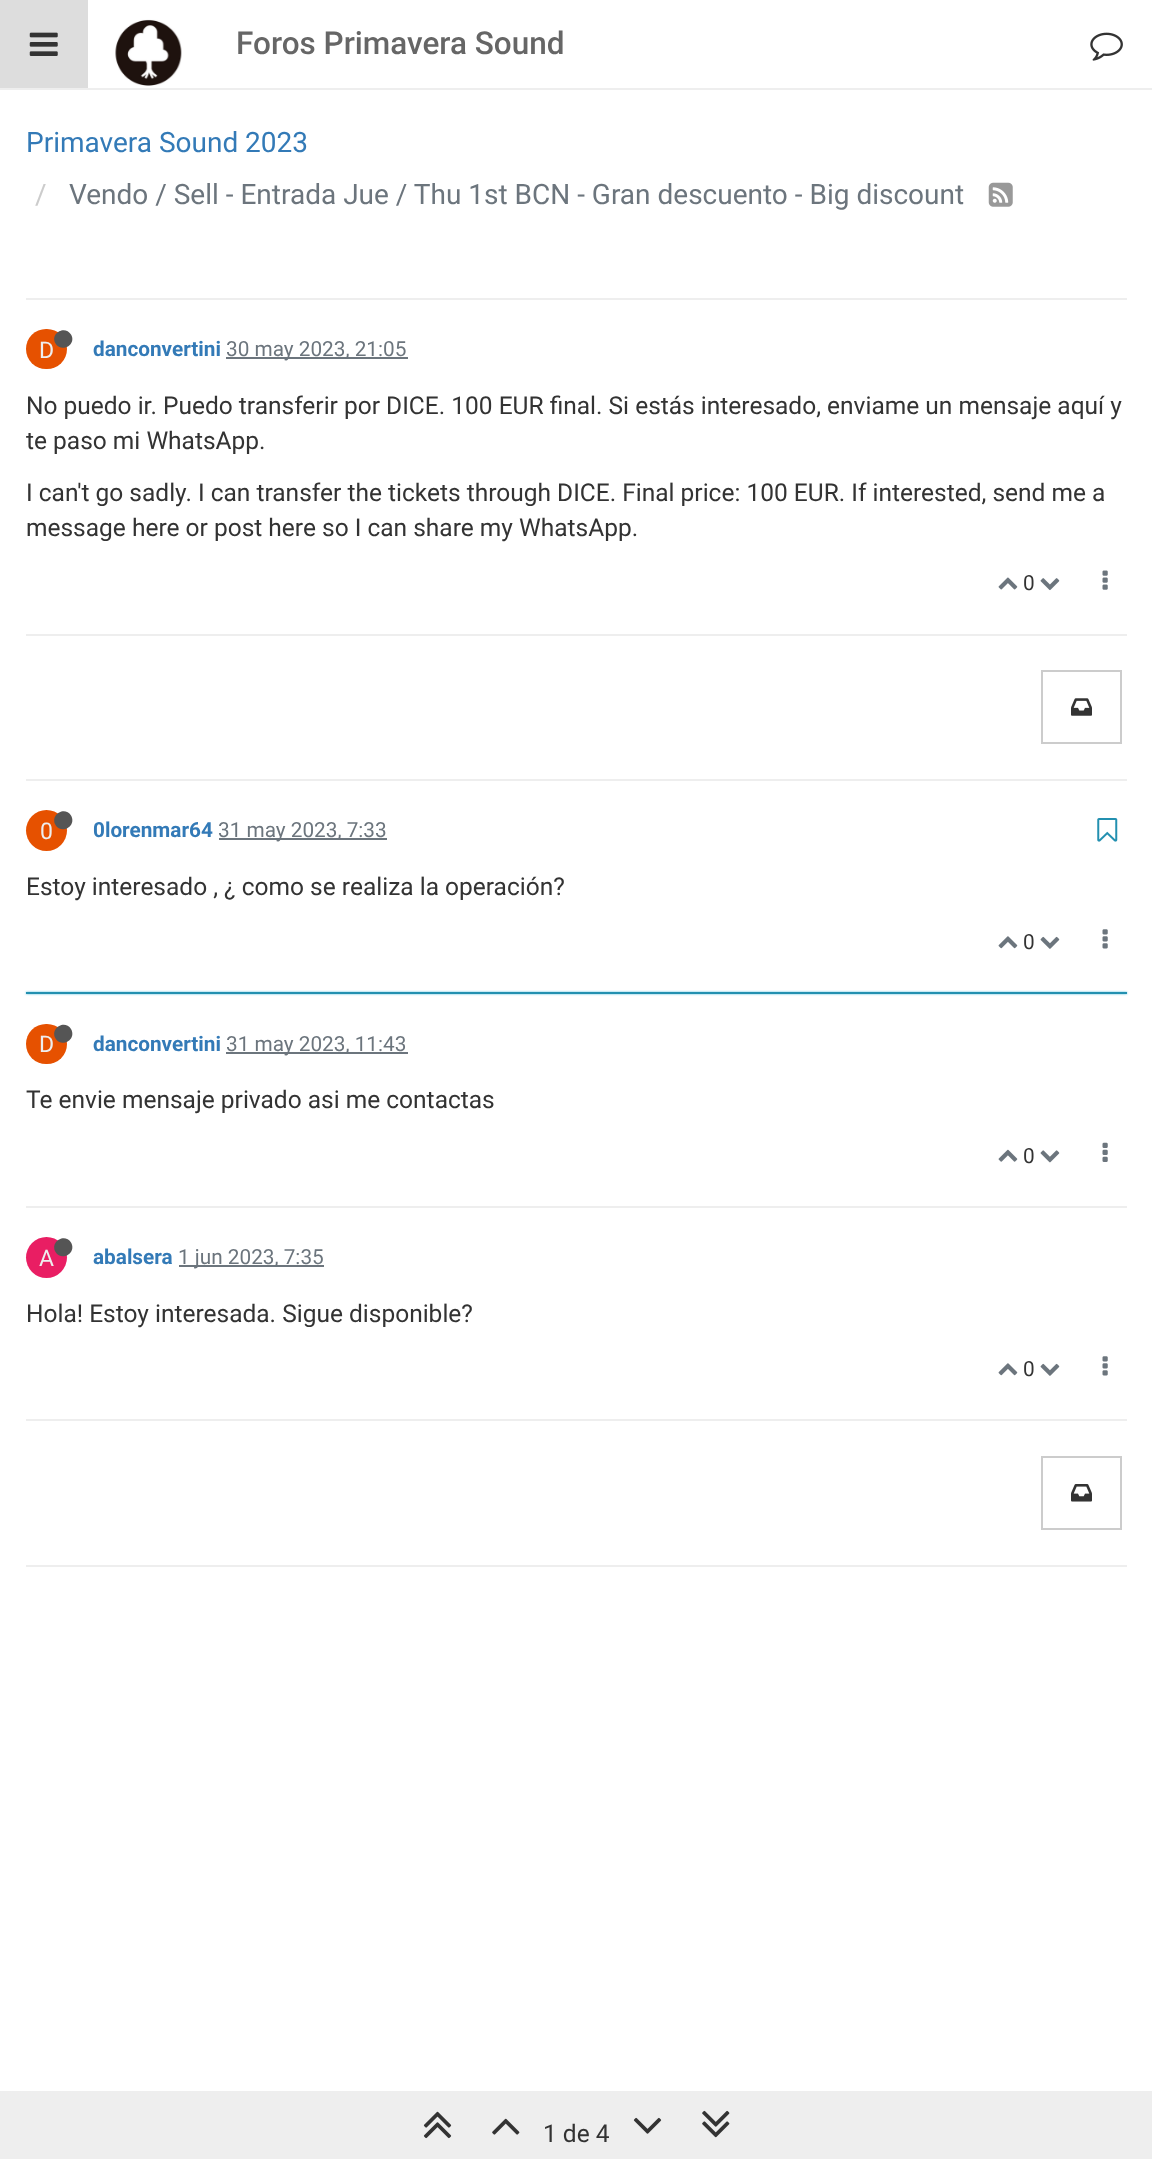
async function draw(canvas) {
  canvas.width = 1152;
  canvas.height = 2159;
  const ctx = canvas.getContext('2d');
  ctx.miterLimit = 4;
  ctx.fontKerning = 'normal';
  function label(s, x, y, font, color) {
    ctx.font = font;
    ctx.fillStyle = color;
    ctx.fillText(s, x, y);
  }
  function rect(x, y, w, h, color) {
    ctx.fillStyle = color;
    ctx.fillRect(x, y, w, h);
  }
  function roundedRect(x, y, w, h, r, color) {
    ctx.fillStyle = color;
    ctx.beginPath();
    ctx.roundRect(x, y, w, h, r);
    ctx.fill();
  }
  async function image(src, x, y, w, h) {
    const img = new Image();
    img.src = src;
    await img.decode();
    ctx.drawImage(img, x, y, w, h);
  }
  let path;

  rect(0, 0, 1152, 2159, '#fff');
  rect(0, 88, 1152, 2, '#eee');
  rect(0, 0, 88, 88, '#ddd');
  await image('assets/img1.png', 29, 32, 29, 24);
  await image('assets/img2.png', 115, 19, 67, 67);
  label('Foros Primavera Sound', 236, 54, '500 31.5px Roboto', '#666');
  await image('assets/img3.png', 1090, 32, 33, 29);
  label('Primavera Sound 2023', 26, 152, '28px Roboto', '#337ab7');
  label('/', 35, 204, '28px Roboto', '#ccc');
  label('Vendo / Sell - Entrada Jue / Thu 1st BCN - Gran descuento - Big discount', 69, 204, '28px Roboto', '#6c757d');
  await image('assets/img4.png', 988, 182, 25, 25);
  rect(26, 298, 1101, 2, '#eee');
  roundedRect(26, 329, 41, 40, 20, '#e65100');
  label('D', 39, 358, '23px Roboto', '#eee');
  ctx.fillStyle = '#555';
  path = new Path2D('M71 334.5C77 344.5 61.5 353.5 55.5 343.5C49.5 333.5 65 324.5 71 334.5Z');
  ctx.fill(path);
  label('danconvertini', 93, 356, 'bold 20.75px Roboto', '#337ab7');
  rect(226, 357, 182, 2, '#6c757d');
  label('30 may 2023, 21:05', 226, 356, '20.75px Roboto', '#6c757d');
  label('No puedo ir. Puedo transferir por DICE. 100 EUR final. Si estás interesado, enviame un mensaje aquí y', 26, 414, '24.5px Roboto', '#333');
  label('te paso mi WhatsApp.', 26, 449, '24.5px Roboto', '#333');
  label('I can\'t go sadly. I can transfer the tickets through DICE. Final price: 100 EUR. If interested, send me a', 26, 501, '24.5px Roboto', '#333');
  label('message here or post here so I can share my WhatsApp.', 26, 536, '24.5px Roboto', '#333');
  await image('assets/img5.png', 998, 577, 20, 13);
  label('0', 1023, 590, '20.75px Roboto', '#333');
  await image('assets/img6.png', 1040, 578, 20, 13);
  await image('assets/img7.png', 1102, 570, 6, 20);
  rect(26, 634, 1101, 2, '#eee');
  ctx.strokeStyle = '#ccc';
  ctx.lineWidth = 2;
  ctx.strokeRect(1042, 671, 79, 72);
  await image('assets/img8.png', 1071, 698, 21, 18);
  rect(26, 779, 1101, 2, '#eee');
  ctx.fillStyle = '#e65100';
  ctx.beginPath();
  ctx.arc(46.5, 830.5, 20.5, 0, 2 * Math.PI);
  ctx.fill();
  label('0', 40, 839, '23px Roboto', '#eee');
  ctx.fillStyle = '#555';
  path = new Path2D('M71 815.5C77 826 61.5 835 55.5 825C49.5 814.5 65 805.5 71 815.5Z');
  ctx.fill(path);
  label('0lorenmar64', 93, 837, 'bold 20.75px Roboto', '#337ab7');
  rect(219, 838, 168, 2, '#6c757d');
  label('31 may 2023, 7:33', 218, 837, '20.75px Roboto', '#6c757d');
  await image('assets/img9.png', 1097, 818, 21, 24);
  label('Estoy interesado , ¿ como se realiza la operación?', 26, 895, '24.5px Roboto', '#333');
  await image('assets/img10.png', 998, 936, 20, 13);
  label('0', 1023, 949, '20.75px Roboto', '#333');
  await image('assets/img11.png', 1040, 936, 20, 13);
  await image('assets/img12.png', 1102, 929, 6, 20);
  ctx.fillStyle = '#5bc0de';
  ctx.filter = 'blur(1px)';
  ctx.beginPath();
  ctx.rect(26, 992, 1101, 2);
  ctx.fill();
  ctx.filter = 'none';
  rect(26, 992, 1101, 2, '#2390b0');
  roundedRect(26, 1024, 41, 40, 20, '#e65100');
  label('D', 39, 1052, '23px Roboto', '#eee');
  ctx.fillStyle = '#555';
  path = new Path2D('M71 1029C77 1039.5 61.5 1048.5 55.5 1038.5C49.5 1028 65 1019 71 1029Z');
  ctx.fill(path);
  label('danconvertini', 93, 1051, 'bold 20.75px Roboto', '#337ab7');
  rect(226, 1052, 182, 2, '#6c757d');
  label('31 may 2023, 11:43', 226, 1051, '20.75px Roboto', '#6c757d');
  label('Te envie mensaje privado asi me contactas', 26, 1108, '24.5px Roboto', '#333');
  await image('assets/img13.png', 998, 1149, 20, 13);
  label('0', 1023, 1163, '20.75px Roboto', '#333');
  await image('assets/img14.png', 1040, 1150, 20, 13);
  await image('assets/img15.png', 1102, 1142, 6, 20);
  rect(26, 1206, 1101, 2, '#eee');
  ctx.fillStyle = '#e91e63';
  ctx.beginPath();
  ctx.arc(46.5, 1257.5, 20.5, 0, 2 * Math.PI);
  ctx.fill();
  label('A', 39, 1266, '23px Roboto', '#eee');
  ctx.fillStyle = '#555';
  path = new Path2D('M71 1242.5C77 1253 61.5 1262 55.5 1252C49.5 1241.5 65 1232.5 71 1242.5Z');
  ctx.fill(path);
  label('abalsera', 93, 1264, 'bold 20.75px Roboto', '#337ab7');
  rect(179, 1265, 145, 2, '#6c757d');
  label('1 jun 2023, 7:35', 178, 1264, '20.75px Roboto', '#6c757d');
  label('Hola! Estoy interesada. Sigue disponible?', 26, 1322, '24.5px Roboto', '#333');
  await image('assets/img10.png', 998, 1363, 20, 13);
  label('0', 1023, 1376, '20.75px Roboto', '#333');
  await image('assets/img11.png', 1040, 1363, 20, 13);
  await image('assets/img12.png', 1102, 1356, 6, 20);
  rect(26, 1419, 1101, 2, '#eee');
  ctx.strokeRect(1042, 1457, 79, 72);
  await image('assets/img16.png', 1071, 1484, 21, 18);
  rect(26, 1565, 1101, 2, '#eee');
  rect(0, 2091, 1152, 68, '#eee');
  await image('assets/img17.png', 423, 2111, 29, 28);
  await image('assets/img18.png', 492, 2118, 28, 17);
  label('1 de 4', 543, 2142, '24.5px Roboto', '#333');
  await image('assets/img19.png', 633, 2117, 29, 17);
  await image('assets/img20.png', 702, 2110, 28, 28);
}

draw(document.querySelector('canvas'));
